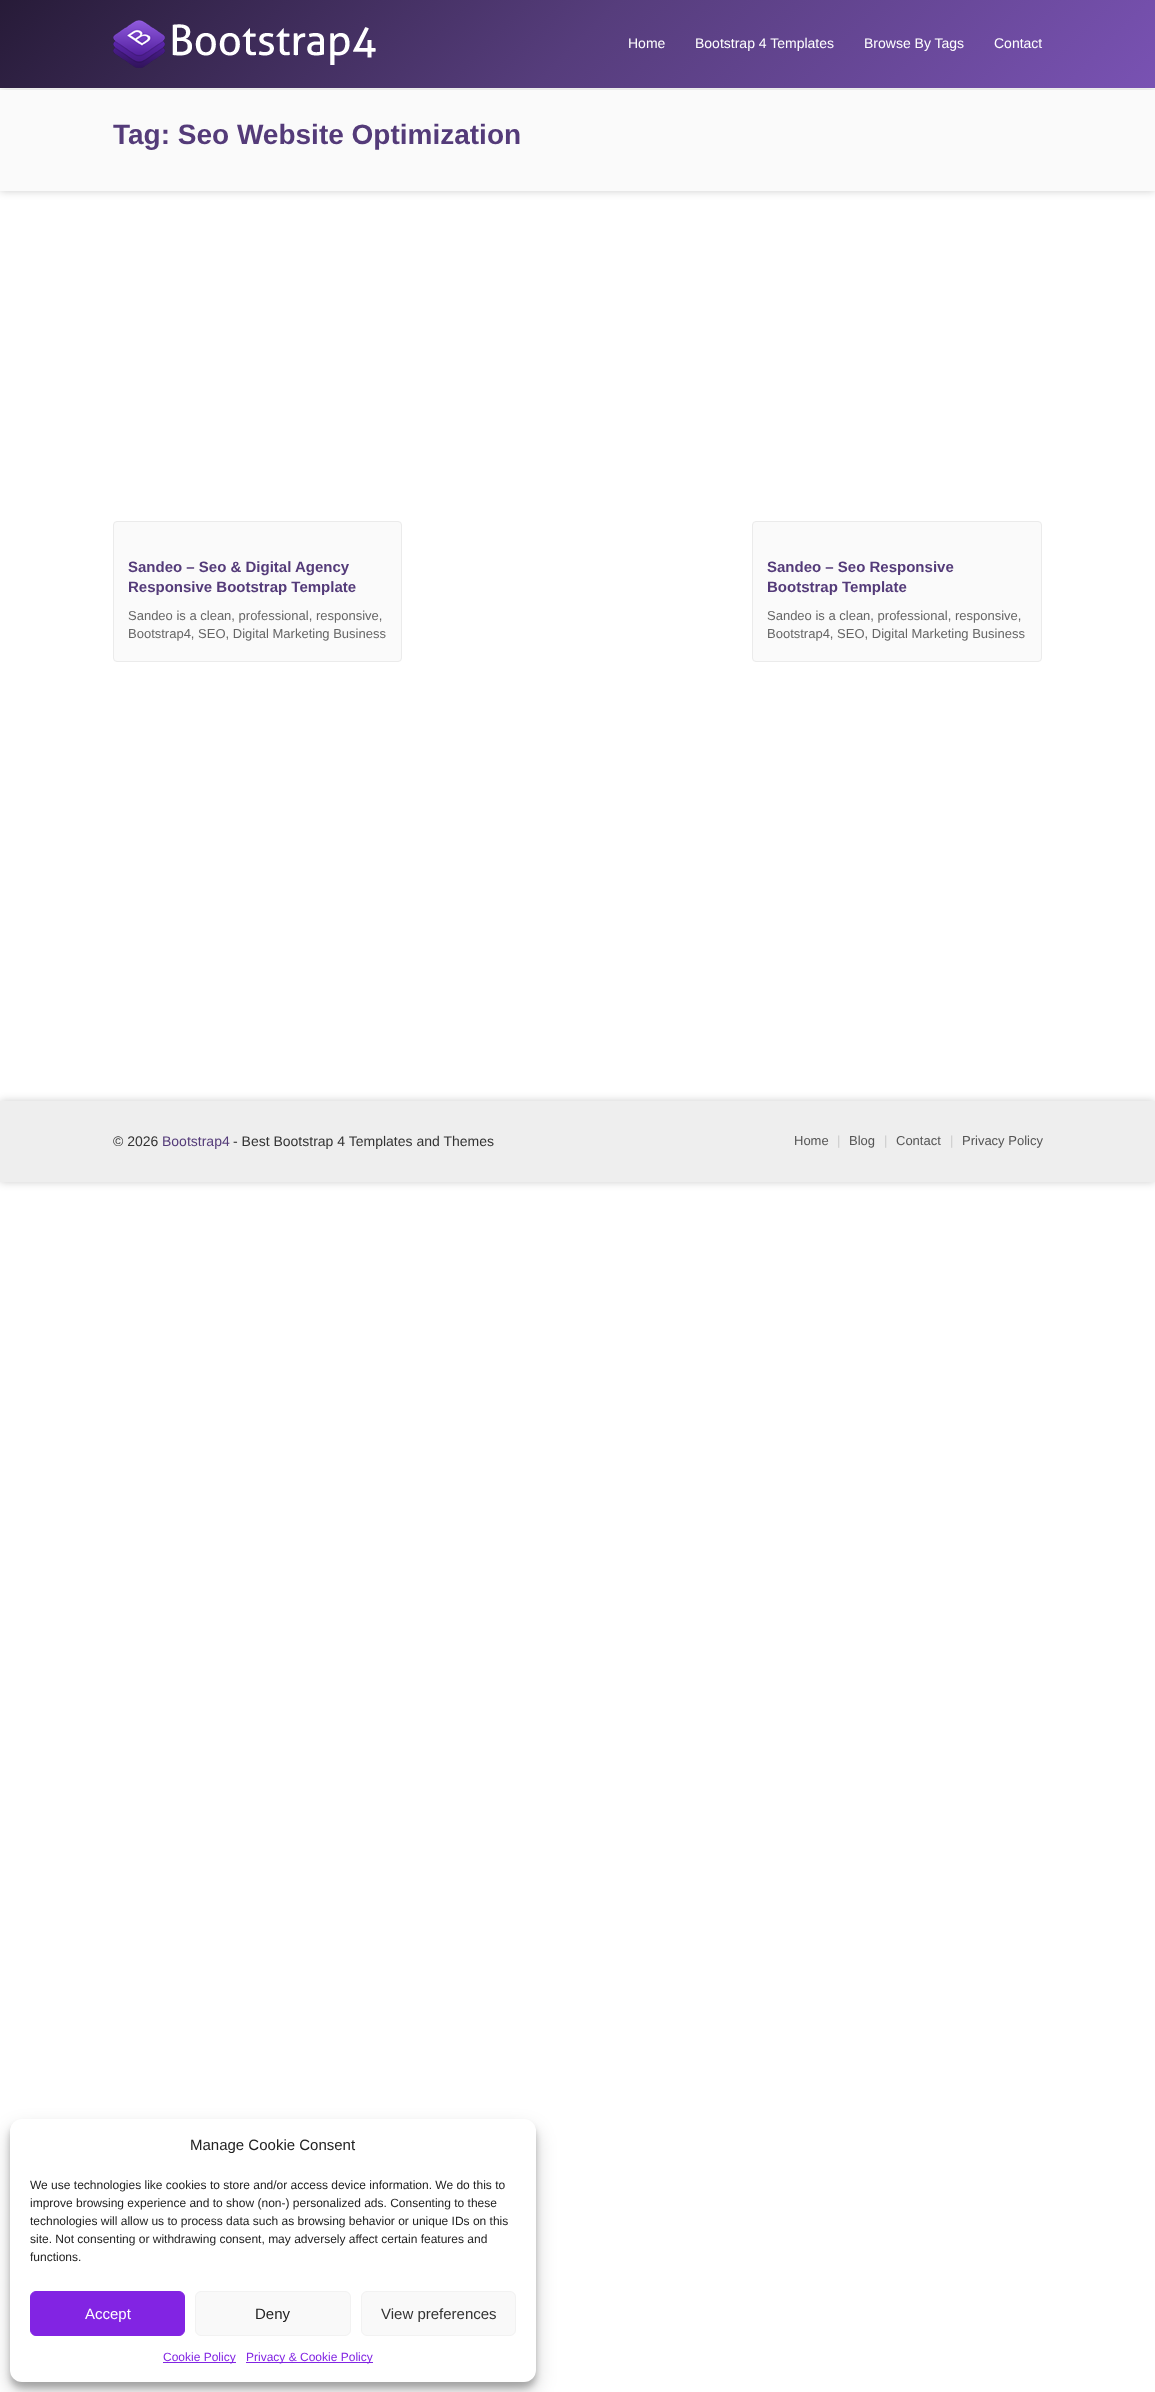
async function draw(canvas) {
  canvas.width = 1155;
  canvas.height = 2392;
  const ctx = canvas.getContext('2d');
  ctx.miterLimit = 4;
  ctx.fontKerning = 'normal';
  function label(s, x, y, font, color) {
    ctx.font = font;
    ctx.fillStyle = color;
    ctx.fillText(s, x, y);
  }
  function rect(x, y, w, h, color) {
    ctx.fillStyle = color;
    ctx.fillRect(x, y, w, h);
  }
  function roundedRect(x, y, w, h, r, color) {
    ctx.fillStyle = color;
    ctx.beginPath();
    ctx.roundRect(x, y, w, h, r);
    ctx.fill();
  }
  async function image(src, x, y, w, h) {
    const img = new Image();
    img.src = src;
    await img.decode();
    ctx.drawImage(img, x, y, w, h);
  }
  let gradient;

  rect(0, 0, 1155, 2392, '#fff');
  ctx.fillStyle = '#00000033';
  ctx.filter = 'blur(4px)';
  ctx.beginPath();
  ctx.rect(0, 90, 1155, 101);
  ctx.fill();
  ctx.filter = 'none';
  gradient = ctx.createLinearGradient(267, -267, 888, 355);
  gradient.addColorStop(0, '#271b38');
  gradient.addColorStop(0.5, '#563d7c');
  gradient.addColorStop(1, '#7952b3');
  ctx.fillStyle = gradient;
  ctx.fillRect(0, 0, 1155, 88);
  await image('assets/img1.png', 113, 20, 263, 48);
  label('Home', 628, 48, '14px Liberation Sans', '#fff');
  label('Bootstrap 4 Templates', 695, 48, '14px Liberation Sans', '#fff');
  label('Browse By Tags', 864, 48, '14px Liberation Sans', '#fff');
  label('Contact', 994, 48, '14px Liberation Sans', '#fff');
  rect(0, 90, 1155, 101, '#fafafa');
  label('Tag: Seo Website Optimization', 113, 144, 'bold 28px Liberation Sans', '#543b79');
  ctx.fillStyle = '#fafafa';
  ctx.beginPath();
  ctx.roundRect(113.5, 521.5, 288, 140, 3.5);
  ctx.fill();
  ctx.strokeStyle = '#ebebeb';
  ctx.stroke();
  label('Sandeo – Seo & Digital Agency', 128, 572, 'bold 15px Liberation Sans', '#543b79');
  label('Responsive Bootstrap Template', 128, 592, 'bold 15px Liberation Sans', '#543b79');
  label('Sandeo is a clean, professional, responsive,', 128, 620, '13px Liberation Sans', '#666');
  label('Bootstrap4, SEO, Digital Marketing Business', 128, 638, '13px Liberation Sans', '#666');
  ctx.fillStyle = '#fafafa';
  ctx.beginPath();
  ctx.roundRect(752.5, 521.5, 289, 140, 3.5);
  ctx.fill();
  ctx.stroke();
  label('Sandeo – Seo Responsive', 767, 572, 'bold 15px Liberation Sans', '#543b79');
  label('Bootstrap Template', 767, 592, 'bold 15px Liberation Sans', '#543b79');
  label('Sandeo is a clean, professional, responsive,', 767, 620, '13px Liberation Sans', '#666');
  label('Bootstrap4, SEO, Digital Marketing Business', 767, 638, '13px Liberation Sans', '#666');
  ctx.fillStyle = '#00000033';
  ctx.filter = 'blur(4px)';
  ctx.beginPath();
  ctx.rect(0, 1101, 1155, 81);
  ctx.fill();
  ctx.filter = 'none';
  rect(0, 1101, 1155, 81, '#eee');
  label('© 2026', 113, 1146, '14px Liberation Sans', '#333');
  label('Bootstrap4', 162, 1146, '14px Liberation Sans', '#543b79');
  label('- Best Bootstrap 4 Templates and Themes', 233, 1146, '14px Liberation Sans', '#333');
  label('Home', 794, 1145, '13px Liberation Sans', '#555');
  label('|', 837, 1145, '13px Liberation Sans', '#ccc');
  label('Blog', 849, 1145, '13px Liberation Sans', '#555');
  label('|', 884, 1145, '13px Liberation Sans', '#ccc');
  label('Contact', 896, 1145, '13px Liberation Sans', '#555');
  label('|', 950, 1145, '13px Liberation Sans', '#ccc');
  label('Privacy Policy', 962, 1145, '13px Liberation Sans', '#555');
  ctx.fillStyle = '#0000003b';
  ctx.filter = 'blur(3px)';
  ctx.beginPath();
  ctx.roundRect(10, 2125, 526, 263, 12);
  ctx.fill();
  ctx.filter = 'none';
  ctx.fillStyle = '#00000030';
  ctx.filter = 'blur(10px)';
  ctx.beginPath();
  ctx.roundRect(10, 2129, 526, 263, 12);
  ctx.fill();
  ctx.filter = 'none';
  roundedRect(10, 2119, 526, 263, 12, '#fff');
  label('Manage Cookie Consent', 190, 2150, '15px Liberation Sans', '#222');
  label('We use technologies like cookies to store and/or access device information. We do this to', 30, 2189, '12px Liberation Sans', '#222');
  label('improve browsing experience and to show (non-) personalized ads. Consenting to these', 30, 2207, '12px Liberation Sans', '#222');
  label('technologies will allow us to process data such as browsing behavior or unique IDs on this', 30, 2225, '12px Liberation Sans', '#222');
  label('site. Not consenting or withdrawing consent, may adversely affect certain features and', 30, 2243, '12px Liberation Sans', '#222');
  label('functions.', 30, 2261, '12px Liberation Sans', '#222');
  ctx.fillStyle = '#8224e3';
  ctx.beginPath();
  ctx.roundRect(30.5, 2291.5, 154, 44, 5.5);
  ctx.fill();
  ctx.strokeStyle = '#8224e3';
  ctx.stroke();
  label('Accept', 85, 2319, '15px Liberation Sans', '#fff');
  ctx.fillStyle = '#f9f9f9';
  ctx.beginPath();
  ctx.roundRect(195.5, 2291.5, 155, 44, 5.5);
  ctx.fill();
  ctx.strokeStyle = '#f2f2f2';
  ctx.stroke();
  label('Deny', 255, 2319, '15px Liberation Sans', '#222');
  ctx.fillStyle = '#f9f9f9';
  ctx.beginPath();
  ctx.roundRect(361.5, 2291.5, 154, 44, 5.5);
  ctx.fill();
  ctx.stroke();
  label('View preferences', 381, 2319, '15px Liberation Sans', '#333');
  rect(163, 2362, 73, 1, '#8224e3');
  label('Cookie Policy', 163, 2361, '12px Liberation Sans', '#8224e3');
  rect(246, 2362, 127, 1, '#8224e3');
  label('Privacy & Cookie Policy', 246, 2361, '12px Liberation Sans', '#8224e3');
}

draw(document.querySelector('canvas'));
